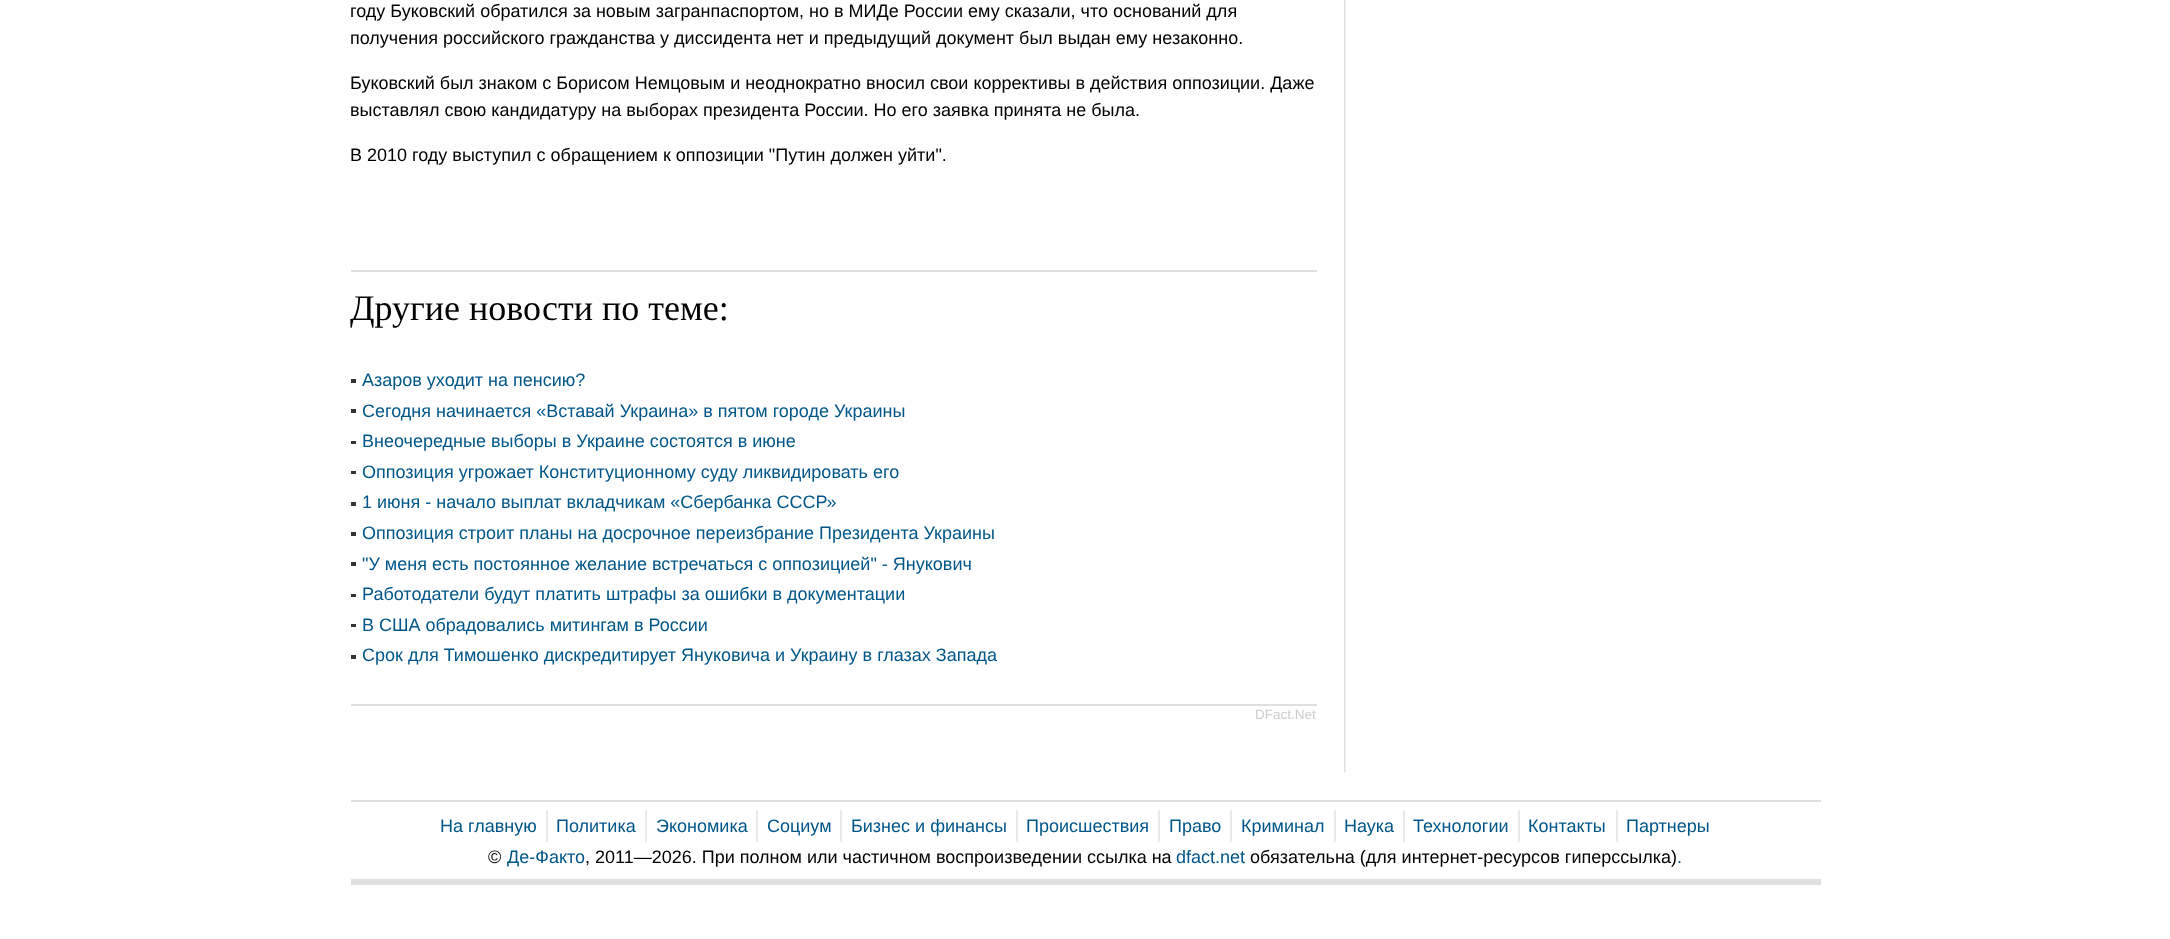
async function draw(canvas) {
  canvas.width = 2170;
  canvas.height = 939;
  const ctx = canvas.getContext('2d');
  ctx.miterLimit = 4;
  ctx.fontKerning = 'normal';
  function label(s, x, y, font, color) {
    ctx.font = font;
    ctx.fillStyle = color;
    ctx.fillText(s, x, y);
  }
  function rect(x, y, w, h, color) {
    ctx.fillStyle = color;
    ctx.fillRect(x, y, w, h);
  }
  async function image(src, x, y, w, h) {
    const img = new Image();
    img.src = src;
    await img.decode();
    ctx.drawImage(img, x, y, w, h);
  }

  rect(0, 0, 2170, 939, '#fff');
  await image('assets/img1.png', 1344, 0, 2, 773);
  label('году Буковский обратился за новым загранпаспортом, но в МИДе России ему сказали, что оснований для', 350, 17, '18px Liberation Sans', '#000');
  label('получения российского гражданства у диссидента нет и предыдущий документ был выдан ему незаконно.', 350, 44, '18px Liberation Sans', '#000');
  label('Буковский был знаком с Борисом Немцовым и неоднократно вносил свои коррективы в действия оппозиции. Даже', 350, 89, '18px Liberation Sans', '#000');
  label('выставлял свою кандидатуру на выборах президента России. Но его заявка принята не была.', 350, 116, '18px Liberation Sans', '#000');
  label('В 2010 году выступил с обращением к оппозиции "Путин должен уйти".', 350, 161, '18px Liberation Sans', '#000');
  rect(351, 270, 966, 2, '#e0e0e0');
  label('Другие новости по теме:', 350, 320, '36px Liberation Serif', '#000');
  rect(351, 379, 5, 4, '#333');
  label('Азаров уходит на пенсию?', 362, 386, '18px Liberation Sans', '#005689');
  rect(351, 409, 5, 4, '#333');
  label('Сегодня начинается «Вставай Украина» в пятом городе Украины', 362, 417, '18px Liberation Sans', '#005689');
  rect(351, 441, 5, 3, '#333');
  label('Внеочередные выборы в Украине состоятся в июне', 362, 447, '18px Liberation Sans', '#005689');
  rect(351, 471, 5, 3, '#333');
  label('Оппозиция угрожает Конституционному суду ликвидировать его', 362, 478, '18px Liberation Sans', '#005689');
  rect(351, 502, 5, 4, '#333');
  label('1 июня - начало выплат вкладчикам «Сбербанка СССР»', 362, 508, '18px Liberation Sans', '#005689');
  rect(351, 532, 5, 4, '#333');
  label('Оппозиция строит планы на досрочное переизбрание Президента Украины', 362, 539, '18px Liberation Sans', '#005689');
  rect(351, 562, 5, 4, '#333');
  label('"У меня есть постоянное желание встречаться с оппозицией" - Янукович', 362, 570, '18px Liberation Sans', '#005689');
  rect(351, 594, 5, 3, '#333');
  label('Работодатели будут платить штрафы за ошибки в документации', 362, 600, '18px Liberation Sans', '#005689');
  rect(351, 624, 5, 3, '#333');
  label('В США обрадовались митингам в России', 362, 631, '18px Liberation Sans', '#005689');
  rect(351, 655, 5, 4, '#333');
  label('Срок для Тимошенко дискредитирует Януковича и Украину в глазах Запада', 362, 661, '18px Liberation Sans', '#005689');
  rect(351, 704, 966, 2, '#e0e0e0');
  label('DFact.Net', 1255, 719, '13.5px Liberation Sans', '#ccc');
  rect(351, 800, 1470, 2, '#e0e0e0');
  rect(351, 879, 1470, 6, '#e0e0e0');
  label('На главную', 440, 832, '18px Liberation Sans', '#005689');
  rect(546, 810, 2, 32, '#eaeaea');
  label('Политика', 556, 832, '18px Liberation Sans', '#005689');
  rect(645, 810, 2, 32, '#eaeaea');
  label('Экономика', 656, 832, '18px Liberation Sans', '#005689');
  rect(756, 810, 2, 32, '#eaeaea');
  label('Социум', 767, 832, '18px Liberation Sans', '#005689');
  rect(840, 810, 2, 32, '#eaeaea');
  label('Бизнес и финансы', 851, 832, '18px Liberation Sans', '#005689');
  rect(1016, 810, 2, 32, '#eaeaea');
  label('Происшествия', 1026, 832, '18px Liberation Sans', '#005689');
  rect(1158, 810, 2, 32, '#eaeaea');
  label('Право', 1169, 832, '18px Liberation Sans', '#005689');
  rect(1230, 810, 2, 32, '#eaeaea');
  label('Криминал', 1241, 832, '18px Liberation Sans', '#005689');
  rect(1334, 810, 2, 32, '#eaeaea');
  label('Наука', 1344, 832, '18px Liberation Sans', '#005689');
  rect(1403, 810, 2, 32, '#eaeaea');
  label('Технологии', 1413, 832, '18px Liberation Sans', '#005689');
  rect(1518, 810, 2, 32, '#eaeaea');
  label('Контакты', 1528, 832, '18px Liberation Sans', '#005689');
  rect(1616, 810, 2, 32, '#eaeaea');
  label('Партнеры', 1626, 832, '18px Liberation Sans', '#005689');
  label('©', 488, 863, '18px Liberation Sans', '#000');
  label('Де-Факто', 507, 863, '18px Liberation Sans', '#005689');
  label(', 2011—2026. При полном или частичном воспроизведении ссылка на', 585, 863, '18px Liberation Sans', '#000');
  label('dfact.net', 1176, 863, '18px Liberation Sans', '#005689');
  label('обязательна (для интернет-ресурсов гиперссылка)', 1250, 863, '18px Liberation Sans', '#000');
  label('.', 1677, 863, '18px Liberation Sans', '#005689');
}

draw(document.querySelector('canvas'));
